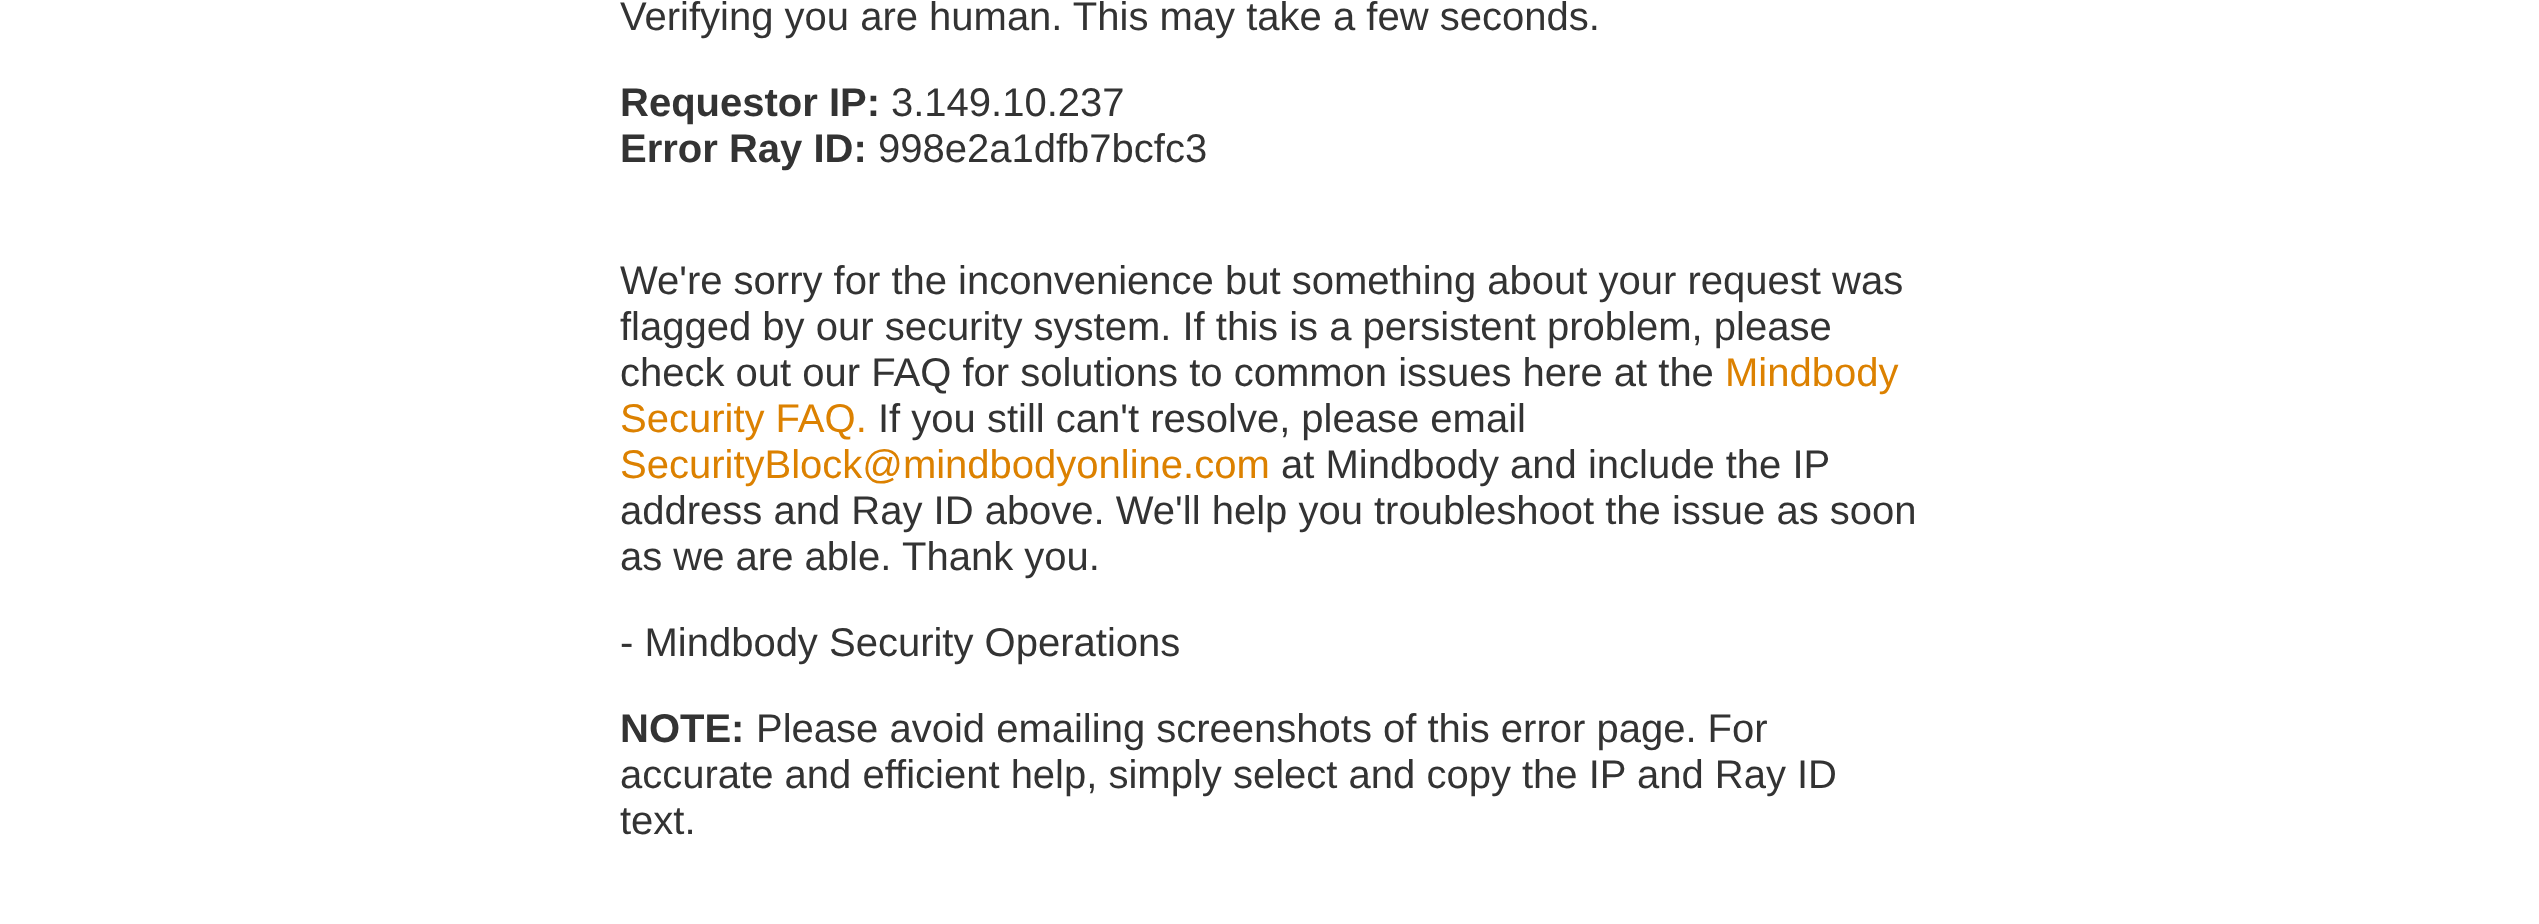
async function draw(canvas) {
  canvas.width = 2539;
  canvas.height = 924;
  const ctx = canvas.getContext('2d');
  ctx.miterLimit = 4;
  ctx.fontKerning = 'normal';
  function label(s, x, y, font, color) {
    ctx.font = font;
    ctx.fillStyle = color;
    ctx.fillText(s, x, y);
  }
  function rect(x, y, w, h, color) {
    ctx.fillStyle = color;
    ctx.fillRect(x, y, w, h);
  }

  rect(0, 0, 2539, 924, '#fff');
  label('Verifying you are human. This may take a few seconds.', 620, 30, '40px Liberation Sans', '#333');
  label('Requestor IP:', 620, 116, 'bold 40px Liberation Sans', '#333');
  label('3.149.10.237', 891, 116, '40px Liberation Sans', '#333');
  label('Error Ray ID:', 620, 162, 'bold 40px Liberation Sans', '#333');
  label('998e2a1dfb7bcfc3', 878, 162, '40px Liberation Sans', '#333');
  label('We\'re sorry for the inconvenience but something about your request was', 620, 294, '40px Liberation Sans', '#333');
  label('flagged by our security system. If this is a persistent problem, please', 620, 340, '40px Liberation Sans', '#333');
  label('check out our FAQ for solutions to common issues here at the', 620, 386, '40px Liberation Sans', '#333');
  label('Mindbody', 1725, 386, '40px Liberation Sans', '#dc8100');
  label('Security FAQ.', 620, 432, '40px Liberation Sans', '#dc8100');
  label('If you still can\'t resolve, please email', 878, 432, '40px Liberation Sans', '#333');
  label('SecurityBlock@mindbodyonline.com', 620, 478, '40px Liberation Sans', '#dc8100');
  label('at Mindbody and include the IP', 1281, 478, '40px Liberation Sans', '#333');
  label('address and Ray ID above. We\'ll help you troubleshoot the issue as soon', 620, 524, '40px Liberation Sans', '#333');
  label('as we are able.', 620, 570, '40px Liberation Sans', '#333');
  label('Thank you.', 902, 570, '40px Liberation Sans', '#333');
  label('- Mindbody Security Operations', 620, 656, '40px Liberation Sans', '#333');
  label('NOTE:', 620, 742, 'bold 40px Liberation Sans', '#333');
  label('Please avoid emailing screenshots of this error page. For', 756, 742, '40px Liberation Sans', '#333');
  label('accurate and efficient help, simply select and copy the IP and Ray ID', 620, 788, '40px Liberation Sans', '#333');
  label('text.', 620, 834, '40px Liberation Sans', '#333');
}

draw(document.querySelector('canvas'));
